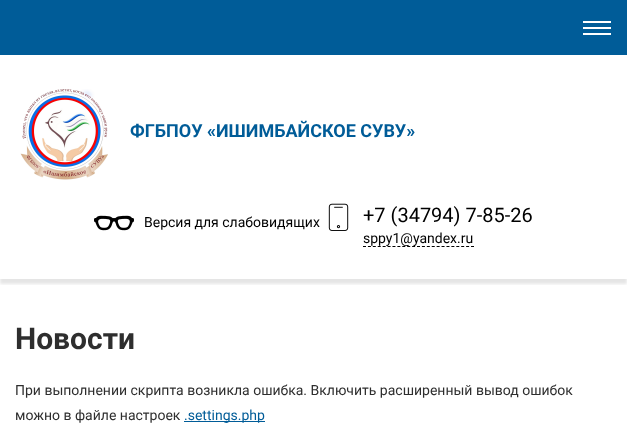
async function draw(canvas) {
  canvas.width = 627;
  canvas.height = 427;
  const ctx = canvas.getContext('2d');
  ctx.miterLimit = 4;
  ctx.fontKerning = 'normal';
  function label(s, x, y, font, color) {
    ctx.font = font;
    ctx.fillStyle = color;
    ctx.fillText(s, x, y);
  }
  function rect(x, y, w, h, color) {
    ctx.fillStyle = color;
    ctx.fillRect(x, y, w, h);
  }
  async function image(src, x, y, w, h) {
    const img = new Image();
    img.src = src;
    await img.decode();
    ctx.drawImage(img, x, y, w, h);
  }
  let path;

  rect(0, 0, 627, 427, '#fff');
  rect(0, 0, 627, 55, '#005c98');
  rect(583, 21, 28, 2, '#fff');
  rect(583, 27, 28, 2, '#fff');
  rect(583, 33, 28, 2, '#fff');
  ctx.save();
  ctx.beginPath();
  ctx.rect(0, 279, 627, 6);
  ctx.clip();
  ctx.fillStyle = '#0000001a';
  ctx.filter = 'blur(1.5px)';
  ctx.beginPath();
  ctx.rect(0, 61, 627, 223);
  ctx.fill();
  ctx.filter = 'none';
  ctx.restore();
  await image('assets/img1.png', 20, 89, 88, 91);
  label('ФГБПОУ «ИШИМБАЙСКОЕ СУВУ»', 130, 137, 'bold 18px Roboto', '#005c98');
  await image('assets/img2.png', 94, 215, 40, 16);
  label('Версия для слабовидящих', 144, 227, '14px Roboto', '#000');
  await image('assets/img3.png', 328, 203, 21, 28);
  label('+7 (34794) 7-85-26', 363, 222, '20px Roboto', '#000');
  path = new Path2D('M363 246.5H474');
  ctx.strokeStyle = '#000';
  ctx.setLineDash([3, 1.91]);
  ctx.stroke(path);
  label('sppy1@yandex.ru', 363, 243, '14px Roboto', '#000');
  label('Новости', 15, 349, 'bold 30px Roboto', '#2e2e2e');
  label('При выполнении скрипта возникла ошибка. Включить расширенный вывод ошибок', 15, 395, '14px Roboto', '#2e2e2e');
  label('можно в файле настроек', 15, 420, '14px Roboto', '#2e2e2e');
  rect(184, 421, 81, 1, '#005c98');
  label('.settings.php', 184, 420, '14px Roboto', '#005c98');
}

draw(document.querySelector('canvas'));
